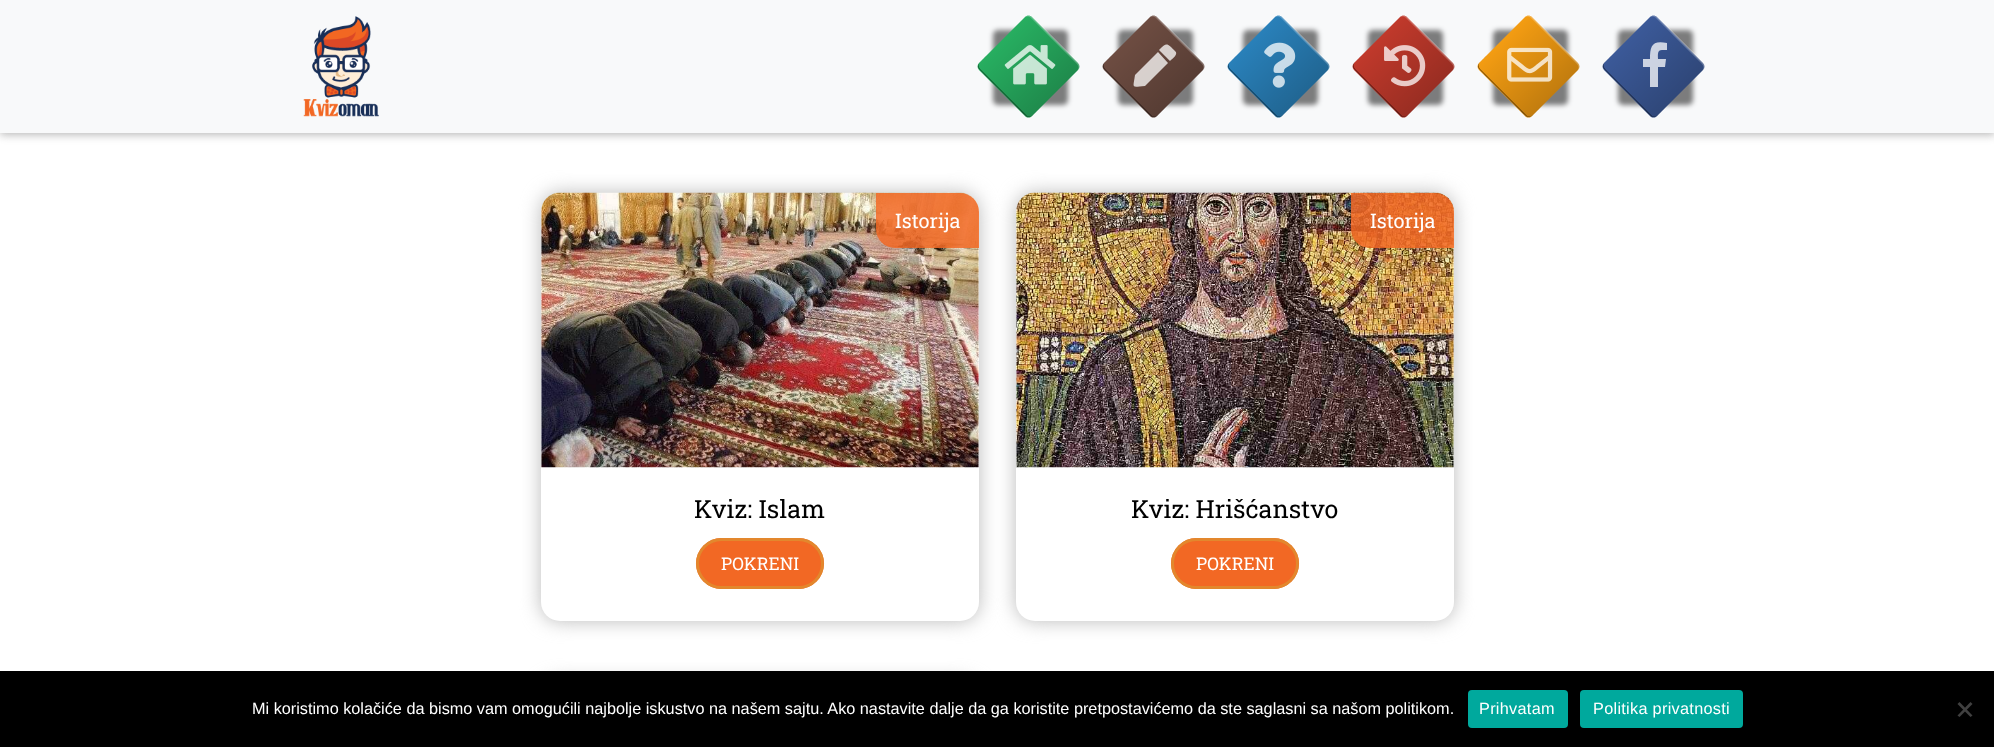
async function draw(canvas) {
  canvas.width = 1994;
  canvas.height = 747;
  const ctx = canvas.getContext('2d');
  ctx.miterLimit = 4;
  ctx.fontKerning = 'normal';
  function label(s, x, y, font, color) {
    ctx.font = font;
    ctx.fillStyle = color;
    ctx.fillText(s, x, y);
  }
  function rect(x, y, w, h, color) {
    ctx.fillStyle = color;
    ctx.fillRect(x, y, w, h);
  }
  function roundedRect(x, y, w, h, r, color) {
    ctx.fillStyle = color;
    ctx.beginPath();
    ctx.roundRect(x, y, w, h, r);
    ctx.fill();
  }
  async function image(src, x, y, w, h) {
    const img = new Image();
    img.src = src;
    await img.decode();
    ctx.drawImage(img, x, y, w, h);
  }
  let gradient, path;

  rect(0, 0, 1994, 747, '#fff');
  ctx.fillStyle = '#bababa';
  ctx.filter = 'blur(4px)';
  ctx.beginPath();
  ctx.rect(0, 3, 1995, 132);
  ctx.fill();
  ctx.filter = 'none';
  rect(0, 0, 1994, 133, '#f8f9fa');
  await image('assets/img1.png', 303, 16, 76, 101);
  ctx.fillStyle = '#00000080';
  ctx.filter = 'blur(2.5px)';
  ctx.beginPath();
  ctx.roundRect(993, 30, 75, 75, 5);
  ctx.fill();
  ctx.filter = 'none';
  ctx.fillStyle = '#ffffff33';
  path = new Path2D('M1031 18L1077 64C1079 66 1079 69 1077 71L1032 116L1071 77C1083 65 1083 67 1071 55L1040 24C1028 12 1030 12 1018 24L979 63L1024 18C1026 16 1029 16 1031 18Z');
  ctx.fill(path);
  ctx.fillStyle = '#27ae60';
  path = new Path2D('M1032 17L1078 63C1080 65 1080 68 1078 70L1032 116C1030 118 1027 118 1025 116L979 70C977 68 977 65 979 63L1025 17C1027 15 1030 15 1032 17Z');
  ctx.fill(path);
  gradient = ctx.createLinearGradient(1002, 40, 1055, 93);
  gradient.addColorStop(0, '#00000000');
  gradient.addColorStop(1, '#00000033');
  ctx.fillStyle = gradient;
  path = new Path2D('M1032 17L1078 63C1080 65 1080 68 1078 70L1032 116C1030 118 1027 118 1025 116L979 70C977 68 977 65 979 63L1025 17C1027 15 1030 15 1032 17Z');
  ctx.fill(path);
  ctx.fillStyle = '#00000099';
  path = new Path2D('M1026 16L987 55C975 67 975 65 987 77L1018 108C1030 120 1028 120 1040 108L1079 69L1033 115C1031 117 1028 117 1026 115L980 69C978 67 978 64 980 62Z');
  ctx.fill(path);
  ctx.fillStyle = '#ffffff40';
  path = new Path2D('M1031 18L1077 64C1079 66 1079 69 1077 71L1032 116L1071 77C1083 65 1083 67 1071 55L1040 24C1028 12 1030 12 1018 24L979 63L1024 18C1026 16 1029 16 1031 18Z');
  ctx.fill(path);
  await image('assets/img2.png', 1004, 45, 52, 40);
  ctx.fillStyle = '#00000080';
  ctx.filter = 'blur(2.5px)';
  ctx.beginPath();
  ctx.roundRect(1118, 30, 75, 75, 5);
  ctx.fill();
  ctx.filter = 'none';
  ctx.fillStyle = '#ffffff33';
  path = new Path2D('M1156 18L1202 64C1204 66 1204 69 1202 71L1157 116L1196 77C1208 65 1208 67 1196 55L1165 24C1153 12 1155 12 1143 24L1104 63L1149 18C1151 16 1154 16 1156 18Z');
  ctx.fill(path);
  ctx.fillStyle = '#6d4c41';
  path = new Path2D('M1157 17L1203 63C1205 65 1205 68 1203 70L1157 116C1155 118 1152 118 1150 116L1104 70C1102 68 1102 65 1104 63L1150 17C1152 15 1155 15 1157 17Z');
  ctx.fill(path);
  gradient = ctx.createLinearGradient(1127, 40, 1180, 93);
  gradient.addColorStop(0, '#00000000');
  gradient.addColorStop(1, '#00000033');
  ctx.fillStyle = gradient;
  path = new Path2D('M1157 17L1203 63C1205 65 1205 68 1203 70L1157 116C1155 118 1152 118 1150 116L1104 70C1102 68 1102 65 1104 63L1150 17C1152 15 1155 15 1157 17Z');
  ctx.fill(path);
  ctx.fillStyle = '#00000099';
  path = new Path2D('M1151 16L1112 55C1100 67 1100 65 1112 77L1143 108C1155 120 1153 120 1165 108L1204 69L1158 115C1156 117 1153 117 1151 115L1105 69C1103 67 1103 64 1105 62Z');
  ctx.fill(path);
  ctx.fillStyle = '#ffffff40';
  path = new Path2D('M1156 18L1202 64C1204 66 1204 69 1202 71L1157 116L1196 77C1208 65 1208 67 1196 55L1165 24C1153 12 1155 12 1143 24L1104 63L1149 18C1151 16 1154 16 1156 18Z');
  ctx.fill(path);
  ctx.fillStyle = '#ffffffbf';
  path = new Path2D('M1158 52L1168 63L1145 86C1131 87 1133 89 1135 75ZM1175 51C1179 54 1172 59 1170 61L1159 50C1167 42 1167 43 1175 51Z');
  ctx.fill(path);
  ctx.fillStyle = '#00000080';
  ctx.filter = 'blur(2.5px)';
  ctx.beginPath();
  ctx.roundRect(1243, 30, 75, 75, 5);
  ctx.fill();
  ctx.filter = 'none';
  ctx.fillStyle = '#ffffff33';
  path = new Path2D('M1281 18L1327 64C1329 66 1329 69 1327 71L1282 116L1321 77C1333 65 1333 67 1321 55L1290 24C1278 12 1280 12 1268 24L1229 63L1274 18C1276 16 1279 16 1281 18Z');
  ctx.fill(path);
  ctx.fillStyle = '#2980b9';
  path = new Path2D('M1282 17L1328 63C1330 65 1330 68 1328 70L1282 116C1280 118 1277 118 1275 116L1229 70C1227 68 1227 65 1229 63L1275 17C1277 15 1280 15 1282 17Z');
  ctx.fill(path);
  gradient = ctx.createLinearGradient(1252, 40, 1305, 93);
  gradient.addColorStop(0, '#00000000');
  gradient.addColorStop(1, '#00000033');
  ctx.fillStyle = gradient;
  path = new Path2D('M1282 17L1328 63C1330 65 1330 68 1328 70L1282 116C1280 118 1277 118 1275 116L1229 70C1227 68 1227 65 1229 63L1275 17C1277 15 1280 15 1282 17Z');
  ctx.fill(path);
  ctx.fillStyle = '#00000099';
  path = new Path2D('M1276 16L1237 55C1225 67 1225 65 1237 77L1268 108C1280 120 1278 120 1290 108L1329 69L1283 115C1281 117 1278 117 1276 115L1230 69C1228 67 1228 64 1230 62Z');
  ctx.fill(path);
  ctx.fillStyle = '#ffffff40';
  path = new Path2D('M1281 18L1327 64C1329 66 1329 69 1327 71L1282 116L1321 77C1333 65 1333 67 1321 55L1290 24C1278 12 1280 12 1268 24L1229 63L1274 18C1276 16 1279 16 1281 18Z');
  ctx.fill(path);
  await image('assets/img3.png', 1264, 42, 32, 46);
  ctx.fillStyle = '#00000080';
  ctx.filter = 'blur(2.5px)';
  ctx.beginPath();
  ctx.roundRect(1368, 30, 75, 75, 5);
  ctx.fill();
  ctx.filter = 'none';
  ctx.fillStyle = '#ffffff33';
  path = new Path2D('M1406 18L1452 64C1454 66 1454 69 1452 71L1407 116L1446 77C1458 65 1458 67 1446 55L1415 24C1403 12 1405 12 1393 24L1354 63L1399 18C1401 16 1404 16 1406 18Z');
  ctx.fill(path);
  ctx.fillStyle = '#c0392b';
  path = new Path2D('M1407 17L1453 63C1455 65 1455 68 1453 70L1407 116C1405 118 1402 118 1400 116L1354 70C1352 68 1352 65 1354 63L1400 17C1402 15 1405 15 1407 17Z');
  ctx.fill(path);
  gradient = ctx.createLinearGradient(1377, 40, 1430, 93);
  gradient.addColorStop(0, '#00000000');
  gradient.addColorStop(1, '#00000033');
  ctx.fillStyle = gradient;
  path = new Path2D('M1407 17L1453 63C1455 65 1455 68 1453 70L1407 116C1405 118 1402 118 1400 116L1354 70C1352 68 1352 65 1354 63L1400 17C1402 15 1405 15 1407 17Z');
  ctx.fill(path);
  ctx.fillStyle = '#00000099';
  path = new Path2D('M1401 16L1362 55C1350 67 1350 65 1362 77L1393 108C1405 120 1403 120 1415 108L1454 69L1408 115C1406 117 1403 117 1401 115L1355 69C1353 67 1353 64 1355 62Z');
  ctx.fill(path);
  ctx.fillStyle = '#ffffff40';
  path = new Path2D('M1406 18L1452 64C1454 66 1454 69 1452 71L1407 116L1446 77C1458 65 1458 67 1446 55L1415 24C1403 12 1405 12 1393 24L1354 63L1399 18C1401 16 1404 16 1406 18Z');
  ctx.fill(path);
  await image('assets/img4.png', 1384, 45, 42, 42);
  ctx.fillStyle = '#00000080';
  ctx.filter = 'blur(2.5px)';
  ctx.beginPath();
  ctx.roundRect(1493, 30, 75, 75, 5);
  ctx.fill();
  ctx.filter = 'none';
  ctx.fillStyle = '#ffffff33';
  path = new Path2D('M1531 18L1577 64C1579 66 1579 69 1577 71L1532 116L1571 77C1583 65 1583 67 1571 55L1540 24C1528 12 1530 12 1518 24L1479 63L1524 18C1526 16 1529 16 1531 18Z');
  ctx.fill(path);
  ctx.fillStyle = '#f39c12';
  path = new Path2D('M1532 17L1578 63C1580 65 1580 68 1578 70L1532 116C1530 118 1527 118 1525 116L1479 70C1477 68 1477 65 1479 63L1525 17C1527 15 1530 15 1532 17Z');
  ctx.fill(path);
  gradient = ctx.createLinearGradient(1502, 40, 1555, 93);
  gradient.addColorStop(0, '#00000000');
  gradient.addColorStop(1, '#00000033');
  ctx.fillStyle = gradient;
  path = new Path2D('M1532 17L1578 63C1580 65 1580 68 1578 70L1532 116C1530 118 1527 118 1525 116L1479 70C1477 68 1477 65 1479 63L1525 17C1527 15 1530 15 1532 17Z');
  ctx.fill(path);
  ctx.fillStyle = '#00000099';
  path = new Path2D('M1526 16L1487 55C1475 67 1475 65 1487 77L1518 108C1530 120 1528 120 1540 108L1579 69L1533 115C1531 117 1528 117 1526 115L1480 69C1478 67 1478 64 1480 62Z');
  ctx.fill(path);
  ctx.fillStyle = '#ffffff40';
  path = new Path2D('M1531 18L1577 64C1579 66 1579 69 1577 71L1532 116L1571 77C1583 65 1583 67 1571 55L1540 24C1528 12 1530 12 1518 24L1479 63L1524 18C1526 16 1529 16 1531 18Z');
  ctx.fill(path);
  await image('assets/img5.png', 1507, 47, 46, 35);
  ctx.fillStyle = '#00000080';
  ctx.filter = 'blur(2.5px)';
  ctx.beginPath();
  ctx.roundRect(1618, 30, 75, 75, 5);
  ctx.fill();
  ctx.filter = 'none';
  ctx.fillStyle = '#ffffff33';
  path = new Path2D('M1656 18L1702 64C1704 66 1704 69 1702 71L1657 116L1696 77C1708 65 1708 67 1696 55L1665 24C1653 12 1655 12 1643 24L1604 63L1649 18C1651 16 1654 16 1656 18Z');
  ctx.fill(path);
  ctx.fillStyle = '#3b5998';
  path = new Path2D('M1657 17L1703 63C1705 65 1705 68 1703 70L1657 116C1655 118 1652 118 1650 116L1604 70C1602 68 1602 65 1604 63L1650 17C1652 15 1655 15 1657 17Z');
  ctx.fill(path);
  gradient = ctx.createLinearGradient(1627, 40, 1680, 93);
  gradient.addColorStop(0, '#00000000');
  gradient.addColorStop(1, '#00000033');
  ctx.fillStyle = gradient;
  path = new Path2D('M1657 17L1703 63C1705 65 1705 68 1703 70L1657 116C1655 118 1652 118 1650 116L1604 70C1602 68 1602 65 1604 63L1650 17C1652 15 1655 15 1657 17Z');
  ctx.fill(path);
  ctx.fillStyle = '#00000099';
  path = new Path2D('M1651 16L1612 55C1600 67 1600 65 1612 77L1643 108C1655 120 1653 120 1665 108L1704 69L1658 115C1656 117 1653 117 1651 115L1605 69C1603 67 1603 64 1605 62Z');
  ctx.fill(path);
  ctx.fillStyle = '#ffffff40';
  path = new Path2D('M1656 18L1702 64C1704 66 1704 69 1702 71L1657 116L1696 77C1708 65 1708 67 1696 55L1665 24C1653 12 1655 12 1643 24L1604 63L1649 18C1651 16 1654 16 1656 18Z');
  ctx.fill(path);
  ctx.fillStyle = '#ffffffbf';
  path = new Path2D('M1662 50C1657 50 1658 55 1658 59H1666L1665 67H1658V87H1650V67H1643V59H1650C1650 46 1652 40 1667 43V50Z');
  ctx.fill(path);
  ctx.fillStyle = '#bababa';
  ctx.filter = 'blur(9.5px)';
  ctx.beginPath();
  ctx.roundRect(541, 193, 438, 428, 19);
  ctx.fill();
  ctx.filter = 'none';
  roundedRect(541, 193, 438, 428, 19, '#fff');
  await image('assets/img6.png', 541, 192, 438, 276);
  ctx.fillStyle = '#f26824d9';
  ctx.beginPath();
  ctx.roundRect(876, 193, 103, 55, [0, 19, 0, 19]);
  ctx.fill();
  label('Istorija', 895, 228, '20px Roboto Slab', '#fff');
  label('Kviz: Islam', 694, 518, '25px Roboto Slab', '#000');
  roundedRect(696, 538, 128, 51, 25.5, '#f26824');
  ctx.beginPath();
  ctx.roundRect(697.5, 539.5, 125, 48, 24);
  ctx.strokeStyle = '#e3872d';
  ctx.lineWidth = 3;
  ctx.stroke();
  label('POKRENI', 721, 570, '17.5px Roboto Slab', '#fff');
  ctx.fillStyle = '#bababa';
  ctx.filter = 'blur(9.5px)';
  ctx.beginPath();
  ctx.roundRect(1016, 193, 438, 428, 19);
  ctx.fill();
  ctx.filter = 'none';
  roundedRect(1016, 193, 438, 428, 19, '#fff');
  await image('assets/img7.png', 1016, 192, 438, 276);
  ctx.fillStyle = '#f26824d9';
  ctx.beginPath();
  ctx.roundRect(1351, 193, 103, 55, [0, 19, 0, 19]);
  ctx.fill();
  label('Istorija', 1370, 228, '20px Roboto Slab', '#fff');
  label('Kviz: Hrišćanstvo', 1131, 518, '25px Roboto Slab', '#000');
  roundedRect(1171, 538, 128, 51, 25.5, '#f26824');
  ctx.beginPath();
  ctx.roundRect(1172.5, 539.5, 125, 48, 24);
  ctx.stroke();
  label('POKRENI', 1196, 570, '17.5px Roboto Slab', '#fff');
  ctx.fillStyle = '#bababa';
  ctx.filter = 'blur(9.5px)';
  ctx.beginPath();
  ctx.roundRect(541, 681, 438, 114, 19);
  ctx.fill();
  ctx.filter = 'none';
  rect(0, 671, 1994, 76, '#000');
  label('Mi koristimo kolačiće da bismo vam omogućili najbolje iskustvo na našem sajtu. Ako nastavite dalje da ga koristite pretpostavićemo da ste saglasni sa našom politikom.', 252, 714, '16.25px Liberation Sans', '#fff');
  roundedRect(1468, 690, 100, 38, 4, '#00a99d');
  ctx.letterSpacing = '0.3px';
  label('Prihvatam', 1479, 714, '16.25px Liberation Sans', '#fff');
  roundedRect(1580, 690, 163, 38, 4, '#00a99d');
  label('Politika privatnosti', 1593, 714, '16.25px Liberation Sans', '#fff');
  ctx.fillStyle = '#404040';
  path = new Path2D('M1970.5 702L1972.5 704L1959.5 717L1957.5 715.5Z');
  ctx.fill(path);
  path = new Path2D('M1957.5 704L1959.5 702L1972.5 715.5L1970.5 717Z');
  ctx.fill(path);
}

draw(document.querySelector('canvas'));
